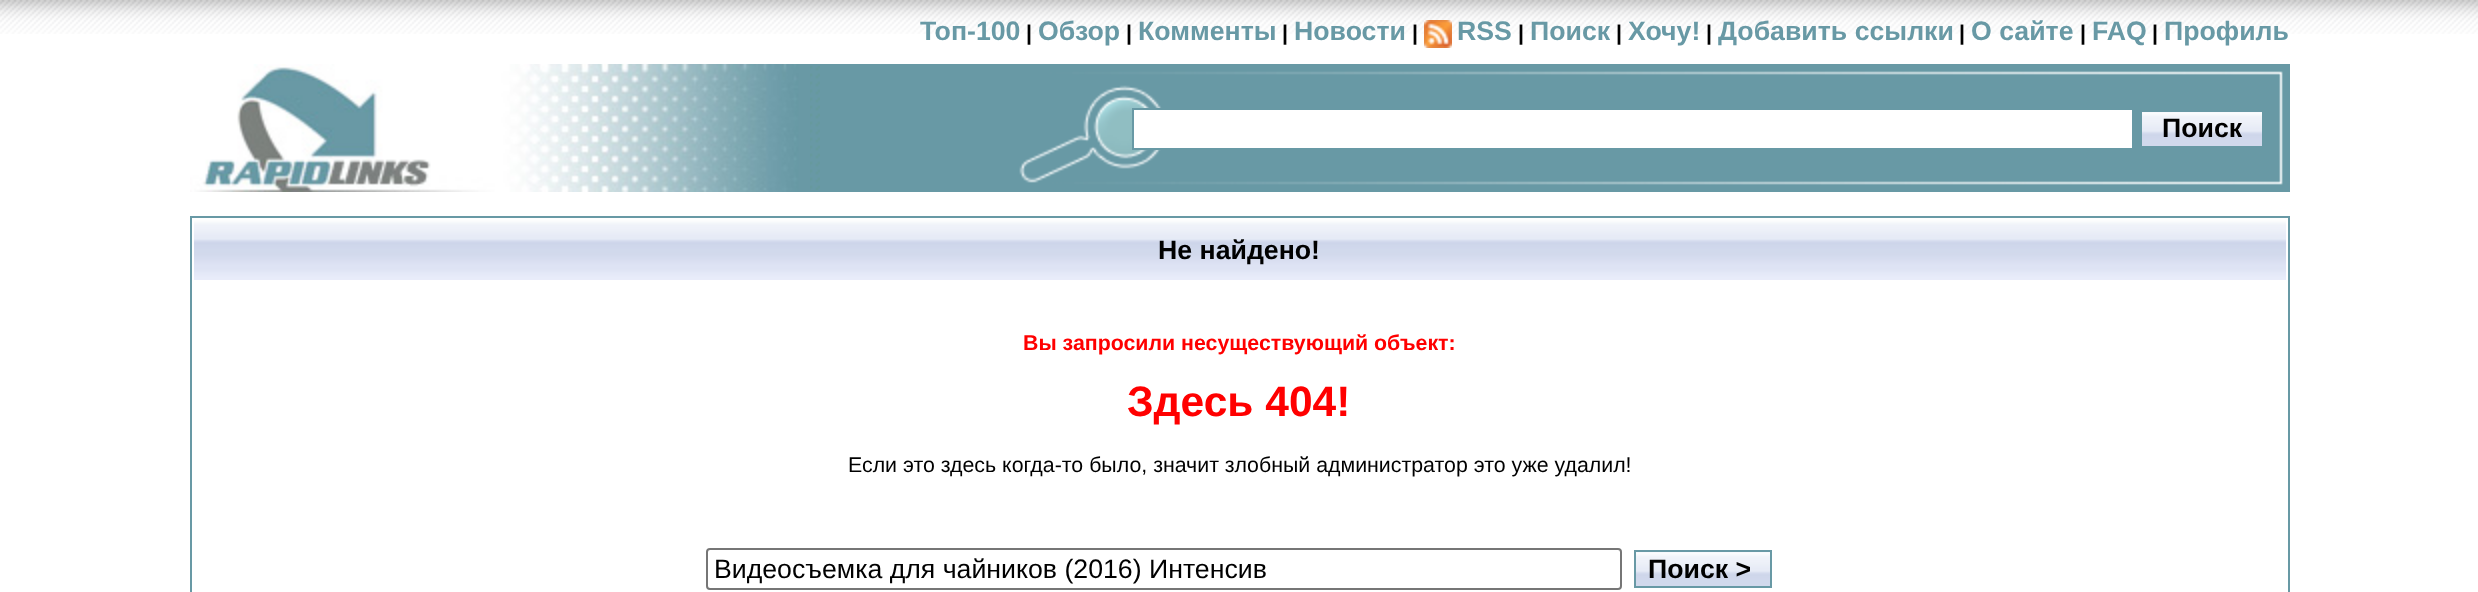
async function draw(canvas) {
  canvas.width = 2478;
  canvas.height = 592;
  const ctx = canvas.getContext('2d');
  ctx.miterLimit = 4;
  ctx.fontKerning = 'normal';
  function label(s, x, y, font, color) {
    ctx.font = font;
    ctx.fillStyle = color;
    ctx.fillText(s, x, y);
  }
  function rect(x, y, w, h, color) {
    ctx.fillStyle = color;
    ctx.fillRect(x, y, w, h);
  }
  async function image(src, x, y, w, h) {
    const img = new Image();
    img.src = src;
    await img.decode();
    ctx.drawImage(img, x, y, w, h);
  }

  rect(0, 0, 2478, 592, '#fff');
  await image('assets/img1.png', 0, 0, 2478, 34);
  label('Топ-100', 920, 40, 'bold 26.7px Liberation Sans', '#6899a5');
  label('|', 1026, 40, 'bold 21.35px Liberation Sans', '#000');
  label('Обзор', 1038, 40, 'bold 26.7px Liberation Sans', '#6899a5');
  label('|', 1126, 40, 'bold 21.35px Liberation Sans', '#000');
  label('Комменты', 1138, 40, 'bold 26.7px Liberation Sans', '#6899a5');
  label('|', 1282, 40, 'bold 21.35px Liberation Sans', '#000');
  label('Новости', 1294, 40, 'bold 26.7px Liberation Sans', '#6899a5');
  label('|', 1412, 40, 'bold 21.35px Liberation Sans', '#000');
  await image('assets/img2.png', 1424, 20, 28, 28);
  label('RSS', 1457, 40, 'bold 26.7px Liberation Sans', '#6899a5');
  label('|', 1518, 40, 'bold 21.35px Liberation Sans', '#000');
  label('Поиск', 1530, 40, 'bold 26.7px Liberation Sans', '#6899a5');
  label('|', 1616, 40, 'bold 21.35px Liberation Sans', '#000');
  label('Хочу!', 1628, 40, 'bold 26.7px Liberation Sans', '#6899a5');
  label('|', 1706, 40, 'bold 21.35px Liberation Sans', '#000');
  label('Добавить ссылки', 1718, 40, 'bold 26.7px Liberation Sans', '#6899a5');
  label('|', 1959, 40, 'bold 21.35px Liberation Sans', '#000');
  label('О сайте', 1971, 40, 'bold 26.7px Liberation Sans', '#6899a5');
  label('|', 2080, 40, 'bold 21.35px Liberation Sans', '#000');
  label('FAQ', 2092, 40, 'bold 26.7px Liberation Sans', '#6899a5');
  label('|', 2152, 40, 'bold 21.35px Liberation Sans', '#000');
  label('Профиль', 2164, 40, 'bold 26.7px Liberation Sans', '#6899a5');
  rect(810, 64, 1480, 128, '#6899a5');
  await image('assets/img3.png', 810, 66, 10, 124);
  await image('assets/img4.png', 190, 64, 620, 128);
  await image('assets/img5.png', 1019, 71, 1264, 114);
  ctx.fillStyle = '#fff';
  ctx.beginPath();
  ctx.rect(1133, 109, 1000, 40);
  ctx.fill();
  ctx.strokeStyle = '#6899a5';
  ctx.lineWidth = 2;
  ctx.stroke();
  await image('assets/img6.png', 2142, 112, 120, 34);
  label('Поиск', 2162, 137, 'bold 26.7px Liberation Sans', '#000');
  ctx.strokeRect(191, 217, 2098, 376);
  await image('assets/img7.png', 194, 220, 2092, 60);
  label('Не найдено!', 1158, 259, 'bold 26.7px Liberation Sans', '#000');
  label('Вы запросили несуществующий объект:', 1023, 350, 'bold 21.35px Liberation Sans', '#f00');
  label('Здесь 404!', 1127, 416, 'bold 42.5px Liberation Sans', '#f00');
  label('Если это здесь когда-то было, значит злобный администратор это уже удалил!', 848, 472, '21.35px Liberation Sans', '#000');
  ctx.beginPath();
  ctx.roundRect(707, 549, 914, 40, 3);
  ctx.strokeStyle = '#767676';
  ctx.stroke();
  label('Видеосъемка для чайников (2016) Интенсив', 714, 578, '26.7px Liberation Sans', '#000');
  await image('assets/img8.png', 1636, 552, 134, 34);
  ctx.strokeStyle = '#6899a5';
  ctx.strokeRect(1635, 551, 136, 36);
  label('Поиск >', 1648, 578, 'bold 26.7px Liberation Sans', '#000');
}

draw(document.querySelector('canvas'));
